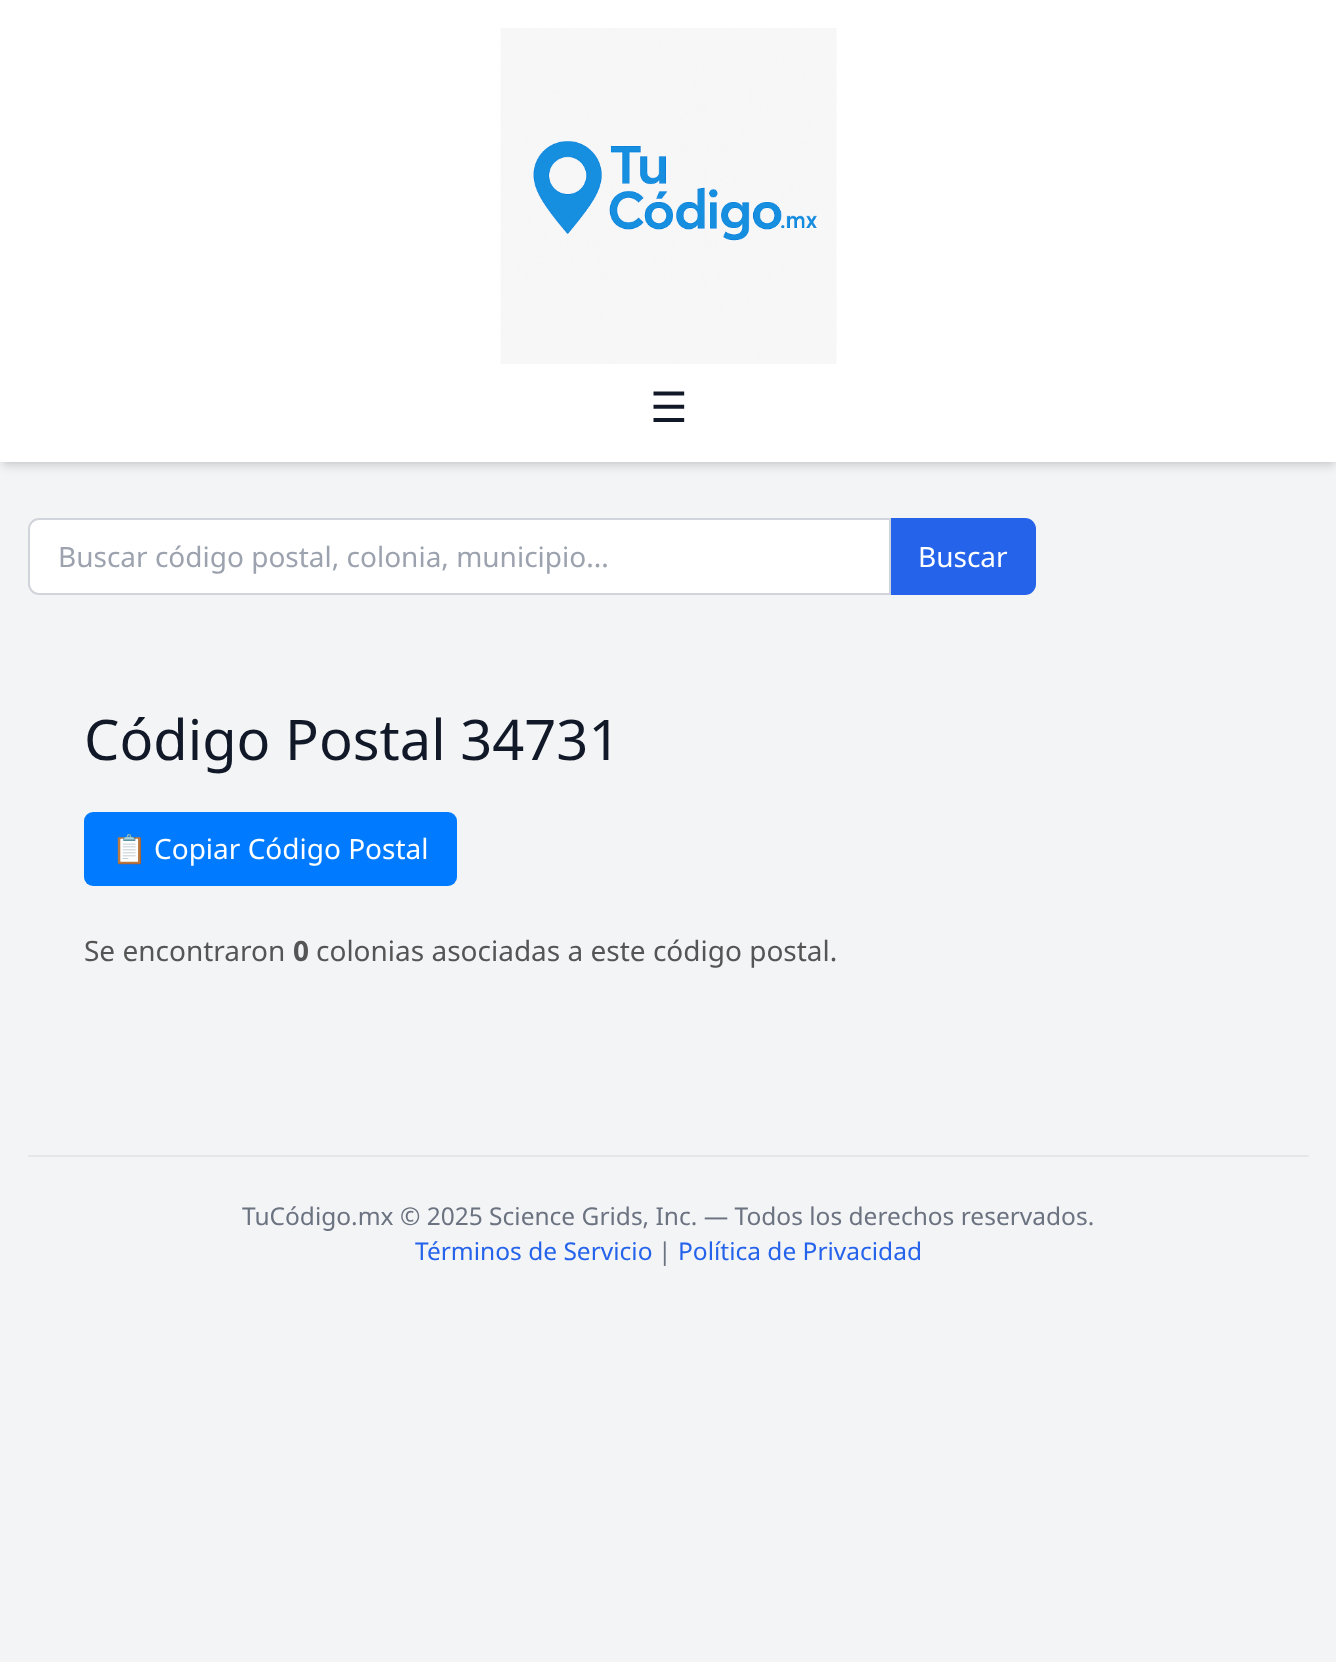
async function draw(canvas) {
  canvas.width = 1336;
  canvas.height = 1662;
  const ctx = canvas.getContext('2d');
  ctx.miterLimit = 4;
  ctx.fontKerning = 'normal';
  function label(s, x, y, font, color) {
    ctx.font = font;
    ctx.fillStyle = color;
    ctx.fillText(s, x, y);
  }
  function rect(x, y, w, h, color) {
    ctx.fillStyle = color;
    ctx.fillRect(x, y, w, h);
  }
  function roundedRect(x, y, w, h, r, color) {
    ctx.fillStyle = color;
    ctx.beginPath();
    ctx.roundRect(x, y, w, h, r);
    ctx.fill();
  }
  async function image(src, x, y, w, h) {
    const img = new Image();
    img.src = src;
    await img.decode();
    ctx.drawImage(img, x, y, w, h);
  }

  rect(0, 0, 1336, 1662, '#f3f4f6');
  ctx.fillStyle = '#0000001a';
  ctx.filter = 'blur(3.5px)';
  ctx.beginPath();
  ctx.rect(4, 7, 1330, 455);
  ctx.fill();
  ctx.filter = 'none';
  ctx.filter = 'blur(5px)';
  ctx.beginPath();
  ctx.rect(2, 9, 1333, 458);
  ctx.fill();
  ctx.filter = 'none';
  rect(0, 0, 1336, 462, '#fff');
  await image('assets/img1.png', 500, 28, 337, 336);
  label('☰', 650, 422, '42px DejaVu Sans', '#111827');
  ctx.fillStyle = '#fff';
  ctx.beginPath();
  ctx.roundRect(29, 519, 861, 75, [10, 0, 0, 10]);
  ctx.fill();
  ctx.strokeStyle = '#d1d5db';
  ctx.lineWidth = 2;
  ctx.stroke();
  label('Buscar código postal, colonia, municipio...', 58, 567, '28px Noto Sans', '#9ca3af');
  ctx.fillStyle = '#2563eb';
  ctx.beginPath();
  ctx.roundRect(891, 518, 145, 77, [0, 11, 11, 0]);
  ctx.fill();
  label('Buscar', 918, 567, '28px Noto Sans', '#fff');
  label('Código Postal 34731', 84, 760, '56px Noto Sans', '#111827');
  roundedRect(84, 812, 373, 74, 9, '#007bff');
  label('📋', 112, 859, '28px Noto Color Emoji', '#fff');
  label('Copiar Código Postal', 154, 859, '28px Noto Sans', '#fff');
  label('Se encontraron', 84, 961, '28px Noto Sans', '#555');
  label('0', 293, 961, 'bold 28px Noto Sans', '#555');
  label('colonias asociadas a este código postal.', 316, 961, '28px Noto Sans', '#555');
  rect(28, 1155, 1281, 2, '#e5e7eb');
  label('TuCódigo.mx © 2025 Science Grids, Inc. — Todos los derechos reservados.', 242, 1225, '24.5px Noto Sans', '#6b7280');
  label('Términos de Servicio', 415, 1260, '24.5px Noto Sans', '#2563eb');
  label('|', 658, 1260, '24.5px Noto Sans', '#6b7280');
  label('Política de Privacidad', 678, 1260, '24.5px Noto Sans', '#2563eb');
}

draw(document.querySelector('canvas'));
